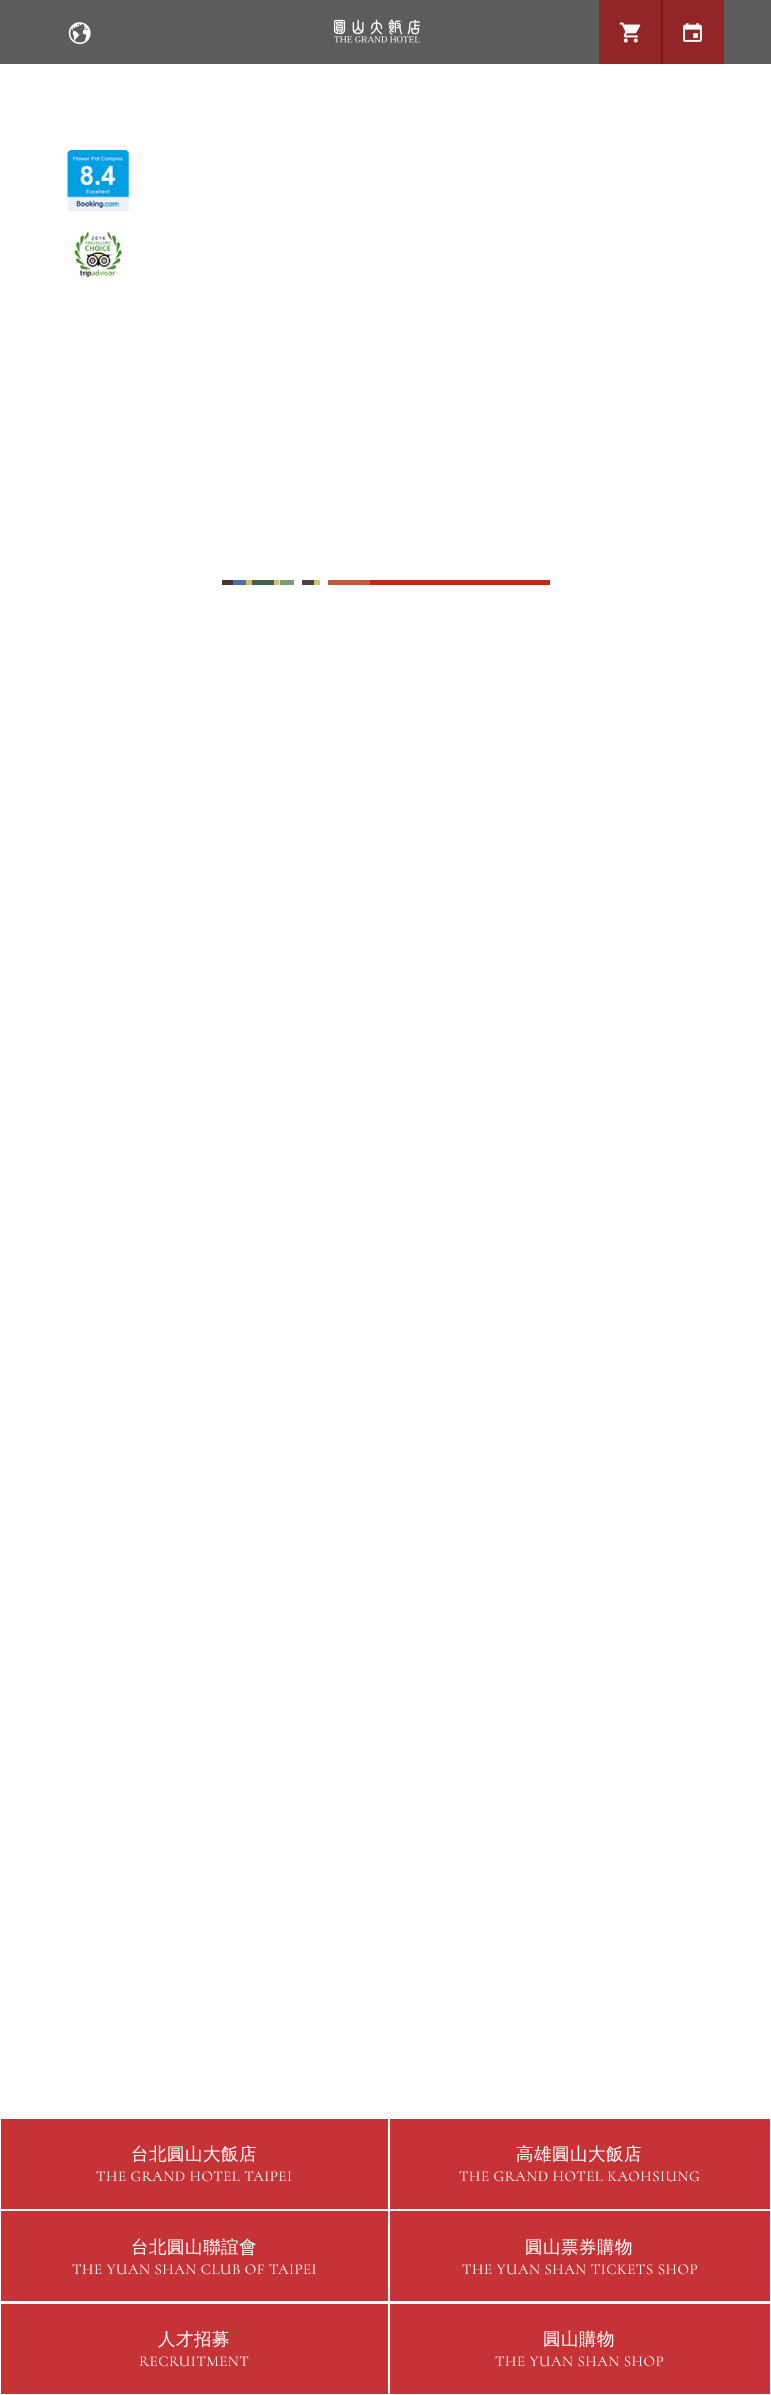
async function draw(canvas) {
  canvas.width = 771;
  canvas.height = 2395;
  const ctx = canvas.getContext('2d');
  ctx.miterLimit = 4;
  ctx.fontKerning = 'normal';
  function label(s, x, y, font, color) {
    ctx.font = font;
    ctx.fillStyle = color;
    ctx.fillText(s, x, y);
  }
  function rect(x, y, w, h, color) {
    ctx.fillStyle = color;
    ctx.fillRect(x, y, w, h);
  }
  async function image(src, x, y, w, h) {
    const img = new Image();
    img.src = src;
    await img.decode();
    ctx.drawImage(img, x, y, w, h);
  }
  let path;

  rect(0, 0, 771, 2395, '#fff');
  rect(0, 0, 771, 64, '#5c5c5c');
  rect(663, 0, 61, 64, '#922528');
  await image('assets/img1.png', 68, 22, 23, 23);
  await image('assets/img2.png', 334, 19, 86, 24);
  ctx.fillStyle = '#801215';
  path = new Path2D('M600 64H663V0H661V64Z');
  ctx.fill(path);
  rect(599, 0, 62, 64, '#922528');
  await image('assets/img3.png', 619, 22, 22, 21);
  await image('assets/img4.png', 683, 23, 19, 19);
  await image('assets/img5.png', 67, 150, 62, 62);
  await image('assets/img6.png', 74, 231, 48, 47);
  rect(328, 580, 42, 5, '#bf5a3c');
  rect(370, 580, 180, 5, '#be2918');
  rect(314, 580, 6, 5, '#d9c161');
  rect(302, 580, 12, 5, '#4b4246');
  rect(280, 580, 14, 5, '#76a175');
  ctx.save();
  ctx.beginPath();
  ctx.rect(221, 580, 329, 5);
  ctx.clip();
  ctx.fillStyle = '#d9c161';
  path = new Path2D('M273.5 580H279.5V585.5H273.5ZM245.5 580H252V585.5H245.5Z');
  ctx.fill(path, 'evenodd');
  ctx.restore();
  rect(233, 580, 13, 5, '#4f6faa');
  rect(222, 580, 11, 5, '#473331');
  rect(252, 580, 22, 5, '#42634a');
  rect(1, 2119, 387, 90, '#c53337');
  ctx.letterSpacing = '0.5px';
  label('台北圓山大飯店', 131, 2160, '500 17.5px WenQuanYi Zen Hei', '#fff');
  label('THE GRAND HOTEL TAIPEI', 96, 2181, '300 15px Cormorant Infant', '#fff');
  rect(390, 2119, 380, 90, '#c53337');
  label('高雄圓山大飯店', 516, 2160, '500 17.5px WenQuanYi Zen Hei', '#fff');
  label('THE GRAND HOTEL KAOHSIUNG', 459, 2181, '300 15px Cormorant Infant', '#fff');
  rect(1, 2211, 387, 90, '#c53337');
  label('台北圓山聯誼會', 131, 2253, '500 17.5px WenQuanYi Zen Hei', '#fff');
  label('THE YUAN SHAN CLUB OF TAIPEI', 72, 2274, '300 15px Cormorant Infant', '#fff');
  rect(390, 2211, 380, 90, '#c53337');
  label('圓山票券購物', 525, 2253, '500 17.5px WenQuanYi Zen Hei', '#fff');
  label('THE YUAN SHAN TICKETS SHOP', 462, 2274, '300 15px Cormorant Infant', '#fff');
  rect(1, 2304, 387, 90, '#c53337');
  label('人才招募', 158, 2345, '500 17.5px WenQuanYi Zen Hei', '#fff');
  label('RECRUITMENT', 139, 2366, '300 15px Cormorant Infant', '#fff');
  rect(390, 2304, 380, 90, '#c53337');
  label('圓山購物', 543, 2345, '500 17.5px WenQuanYi Zen Hei', '#fff');
  label('THE YUAN SHAN SHOP', 495, 2366, '300 15px Cormorant Infant', '#fff');
}

draw(document.querySelector('canvas'));
